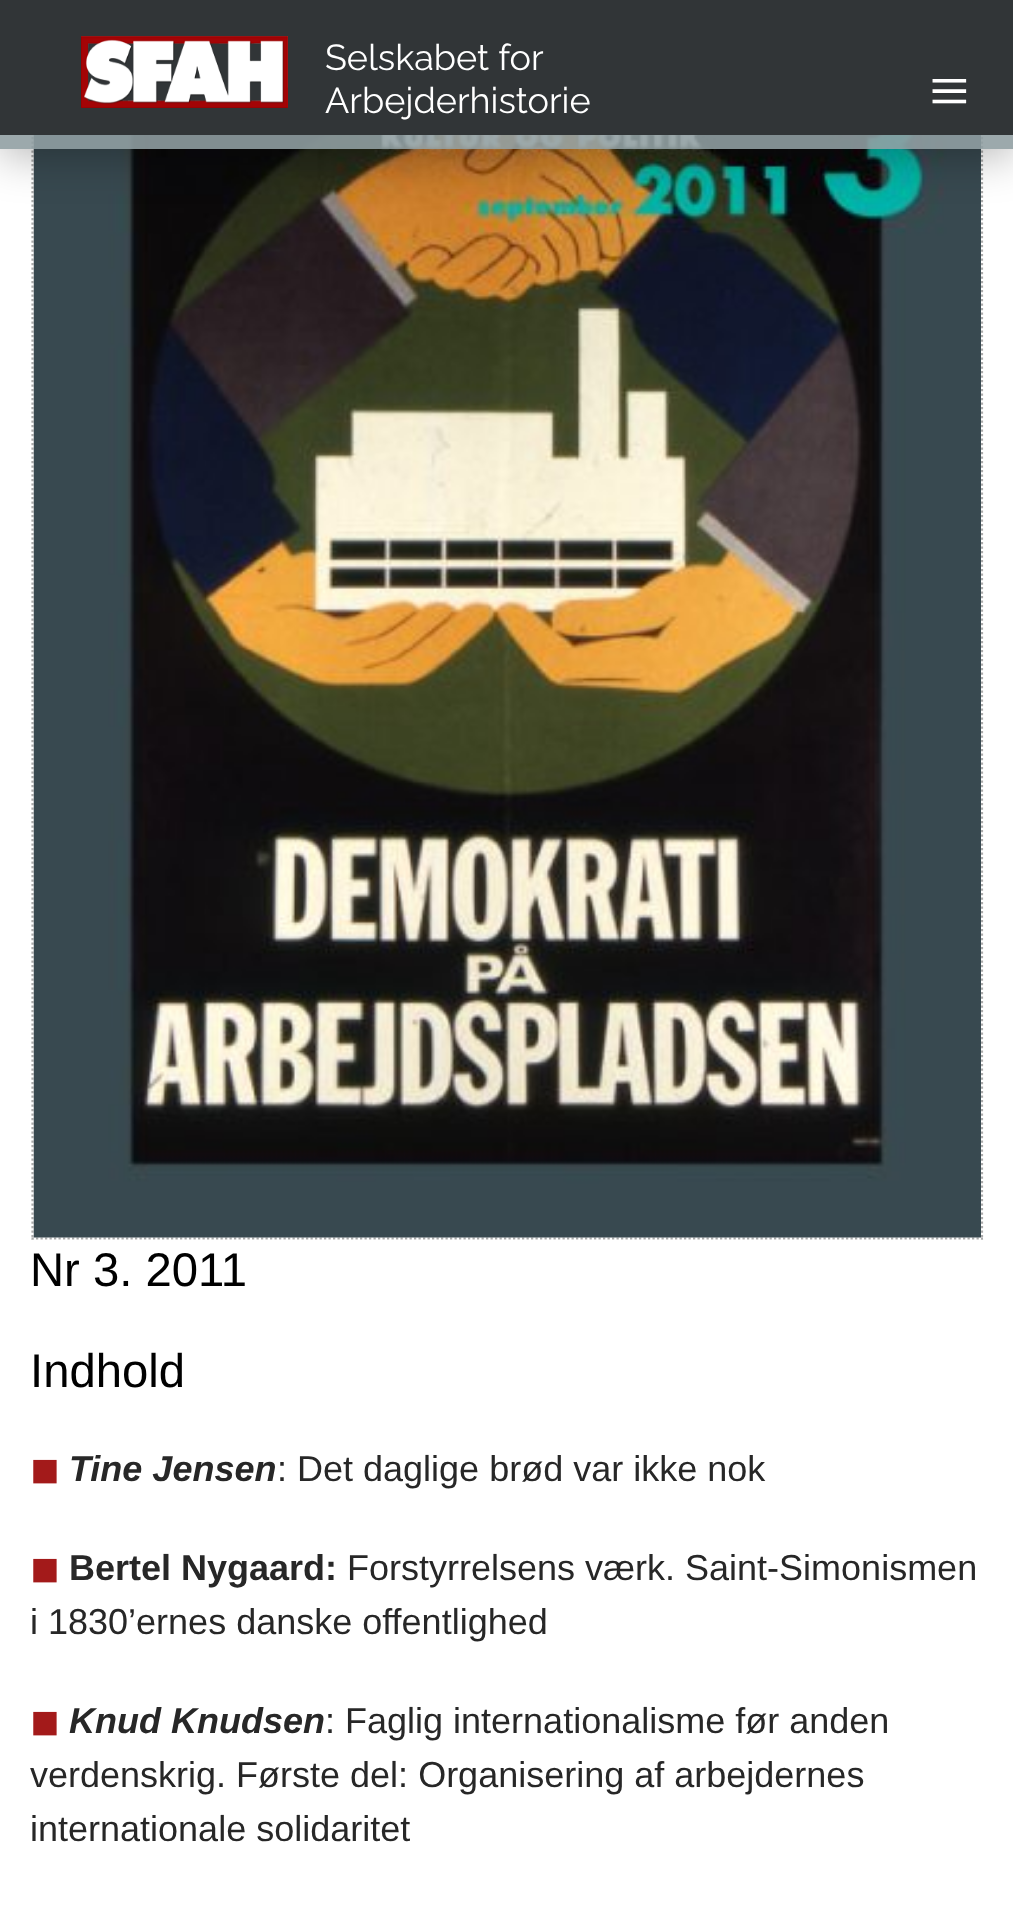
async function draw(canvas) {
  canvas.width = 1013;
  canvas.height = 1931;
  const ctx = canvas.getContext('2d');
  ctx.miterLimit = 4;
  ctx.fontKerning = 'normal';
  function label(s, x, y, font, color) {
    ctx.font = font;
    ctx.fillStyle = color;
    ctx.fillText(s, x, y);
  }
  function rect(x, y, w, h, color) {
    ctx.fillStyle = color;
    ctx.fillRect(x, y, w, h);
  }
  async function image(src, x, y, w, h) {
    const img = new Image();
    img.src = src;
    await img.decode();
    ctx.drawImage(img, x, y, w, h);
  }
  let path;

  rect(0, 0, 1013, 1931, '#fff');
  path = new Path2D('M982-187V1240');
  ctx.strokeStyle = '#ababab';
  ctx.lineWidth = 2.2;
  ctx.setLineDash([2.25, 2.25]);
  ctx.stroke(path);
  path = new Path2D('M31.5 1238.5H983');
  ctx.stroke(path);
  path = new Path2D('M32.5-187V1240');
  ctx.stroke(path);
  await image('assets/img2.png', 33, 135, 948, 1103);
  ctx.save();
  path = new Path2D('M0 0H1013V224H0ZM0 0H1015V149H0Z');
  ctx.clip(path, 'evenodd');
  ctx.fillStyle = '#0000004d';
  ctx.filter = 'blur(22.5px)';
  ctx.beginPath();
  ctx.rect(0, 7, 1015, 148);
  ctx.fill();
  ctx.filter = 'none';
  ctx.restore();
  rect(0, 0, 1013, 135, '#313537');
  await image('assets/img1.png', 81, 36, 207, 72);
  label('Selskabet for', 325, 70, '36px Raleway', '#fff');
  label('Arbejderhistorie', 325, 113, '36px Raleway', '#fff');
  rect(0, 135, 1013, 14, '#909ea2e3');
  label('≡', 929, 115, '72px Liberation Serif', '#fff');
  label('Nr 3. 2011', 30, 1286, '47.25px Liberation Sans', '#000');
  label('Indhold', 30, 1387, '47.25px Liberation Sans', '#000');
  label('◼︎', 30, 1481, '36px DejaVu Sans', '#a31a1a');
  label('Tine Jensen', 69, 1481, 'italic bold 36px Liberation Sans', '#272727');
  label(': Det daglige brød var ikke nok', 277, 1481, '36px Liberation Sans', '#272727');
  label('◼︎', 30, 1580, '36px DejaVu Sans', '#a31a1a');
  label('Bertel Nygaard:', 69, 1580, 'bold 36px Liberation Sans', '#272727');
  label('Forstyrrelsens værk. Saint-Simonismen', 347, 1580, '36px Liberation Sans', '#272727');
  label('i 1830’ernes danske offentlighed', 30, 1634, '36px Liberation Sans', '#272727');
  label('◼︎', 30, 1733, '36px DejaVu Sans', '#a31a1a');
  label('Knud Knudsen', 69, 1733, 'italic bold 36px Liberation Sans', '#272727');
  label(': Faglig internationalisme før anden', 325, 1733, '36px Liberation Sans', '#272727');
  label('verdenskrig. Første del: Organisering af arbejdernes', 30, 1787, '36px Liberation Sans', '#272727');
  label('internationale solidaritet', 30, 1841, '36px Liberation Sans', '#272727');
}

draw(document.querySelector('canvas'));
